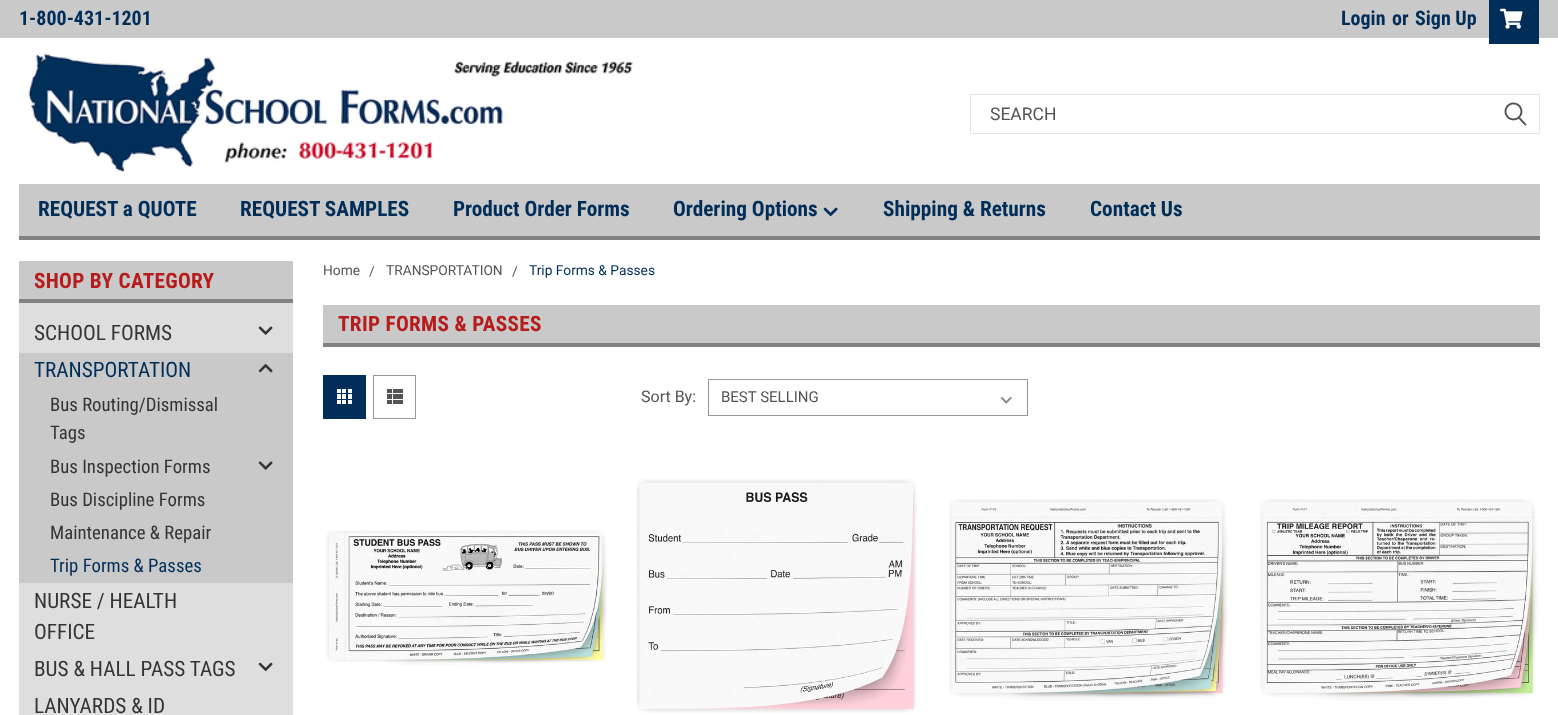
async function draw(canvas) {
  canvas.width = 1558;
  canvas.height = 715;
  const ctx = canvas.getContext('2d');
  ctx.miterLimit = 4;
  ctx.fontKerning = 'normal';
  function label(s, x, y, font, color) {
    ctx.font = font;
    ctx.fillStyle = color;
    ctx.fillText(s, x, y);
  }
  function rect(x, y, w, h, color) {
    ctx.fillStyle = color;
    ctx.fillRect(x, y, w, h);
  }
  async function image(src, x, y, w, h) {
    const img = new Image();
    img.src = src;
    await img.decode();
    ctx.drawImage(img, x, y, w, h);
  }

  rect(0, 0, 1558, 715, '#fff');
  rect(0, 0, 1558, 38, '#c9c9c9');
  label('1-800-431-1201', 19, 25, 'bold 20px Roboto Condensed', '#002e59');
  label('Login', 1341, 25, 'bold 20px Roboto Condensed', '#002e59');
  label('or', 1392, 25, 'bold 20px Roboto Condensed', '#002e59');
  label('Sign Up', 1415, 25, 'bold 20px Roboto Condensed', '#002e59');
  rect(1489, 0, 50, 44, '#002e59');
  await image('assets/img1.png', 1500, 8, 23, 21);
  await image('assets/img2.png', 28, 53, 605, 119);
  ctx.strokeStyle = '#e5e5e5';
  ctx.strokeRect(970.5, 94.5, 569, 39);
  label('SEARCH', 990, 120, '17.5px Roboto', '#545454');
  await image('assets/img3.png', 1504, 102, 23, 24);
  rect(19, 184, 1521, 52, '#c9c9c9');
  rect(19, 236, 1521, 4, '#828282');
  label('REQUEST a QUOTE', 38, 216, 'bold 21.25px Roboto Condensed', '#002e59');
  label('REQUEST SAMPLES', 240, 216, 'bold 21.25px Roboto Condensed', '#002e59');
  label('Product Order Forms', 453, 216, 'bold 21.25px Roboto Condensed', '#002e59');
  label('Ordering Options', 673, 216, 'bold 21.25px Roboto Condensed', '#002e59');
  await image('assets/img4.png', 823, 207, 15, 10);
  label('Shipping & Returns', 883, 216, 'bold 21.25px Roboto Condensed', '#002e59');
  label('Contact Us', 1090, 216, 'bold 21.25px Roboto Condensed', '#002e59');
  rect(19, 261, 274, 38, '#c9c9c9');
  rect(19, 299, 274, 4, '#828282');
  ctx.letterSpacing = '0.3px';
  label('SHOP BY CATEGORY', 34, 288, 'bold 21.25px Roboto Condensed', '#b61c1c');
  rect(19, 303, 274, 412, '#dedede');
  ctx.letterSpacing = '0px';
  label('SCHOOL FORMS', 34, 340, '21.25px Roboto Condensed', '#343434');
  await image('assets/img5.png', 258, 326, 15, 9);
  rect(19, 353, 274, 230, '#c9c9c9');
  label('TRANSPORTATION', 34, 377, '21.25px Roboto Condensed', '#002e59');
  await image('assets/img6.png', 258, 364, 15, 9);
  label('Bus Routing/Dismissal', 50, 411, '18.75px Roboto Condensed', '#343434');
  label('Tags', 50, 439, '18.75px Roboto Condensed', '#343434');
  label('Bus Inspection Forms', 50, 473, '18.75px Roboto Condensed', '#343434');
  await image('assets/img7.png', 258, 461, 15, 9);
  label('Bus Discipline Forms', 50, 506, '18.75px Roboto Condensed', '#343434');
  label('Maintenance & Repair', 50, 539, '18.75px Roboto Condensed', '#343434');
  label('Trip Forms & Passes', 50, 572, '18.75px Roboto Condensed', '#002e59');
  label('NURSE / HEALTH', 34, 608, '21.25px Roboto Condensed', '#343434');
  label('OFFICE', 34, 639, '21.25px Roboto Condensed', '#343434');
  label('BUS & HALL PASS TAGS', 34, 676, '21.25px Roboto Condensed', '#343434');
  await image('assets/img8.png', 258, 662, 15, 9);
  label('LANYARDS & ID', 34, 713, '21.25px Roboto Condensed', '#343434');
  label('Home', 323, 275, '13.75px Roboto', '#545454');
  label('/', 369, 276, '13.75px Roboto', '#545454');
  label('TRANSPORTATION', 386, 275, '13.75px Roboto', '#545454');
  label('/', 512, 276, '13.75px Roboto', '#545454');
  label('Trip Forms & Passes', 529, 275, '13.75px Roboto', '#002e59');
  rect(323, 305, 1217, 38, '#c9c9c9');
  rect(323, 343, 1217, 4, '#828282');
  ctx.letterSpacing = '0.3px';
  label('TRIP FORMS & PASSES', 338, 331, 'bold 21.25px Roboto Condensed', '#b61c1c');
  rect(323, 375, 43, 44, '#002e59');
  await image('assets/img9.png', 337, 389, 15, 15);
  ctx.strokeStyle = '#989898';
  ctx.strokeRect(373.5, 375.5, 42, 43);
  await image('assets/img10.png', 387, 389, 16, 15);
  ctx.letterSpacing = '0px';
  label('Sort By:', 641, 402, '16px Roboto', '#545454');
  await image('assets/img11.png', 1000, 396, 12, 8);
  ctx.strokeRect(708.5, 379.5, 319, 36);
  label('BEST SELLING', 721, 402, '15px Roboto', '#545454');
  await image('assets/img12.png', 326, 530, 281, 135);
  await image('assets/img13.png', 636, 479, 281, 234);
  await image('assets/img14.png', 949, 499, 279, 202);
  await image('assets/img15.png', 1260, 499, 278, 202);
}

draw(document.querySelector('canvas'));
